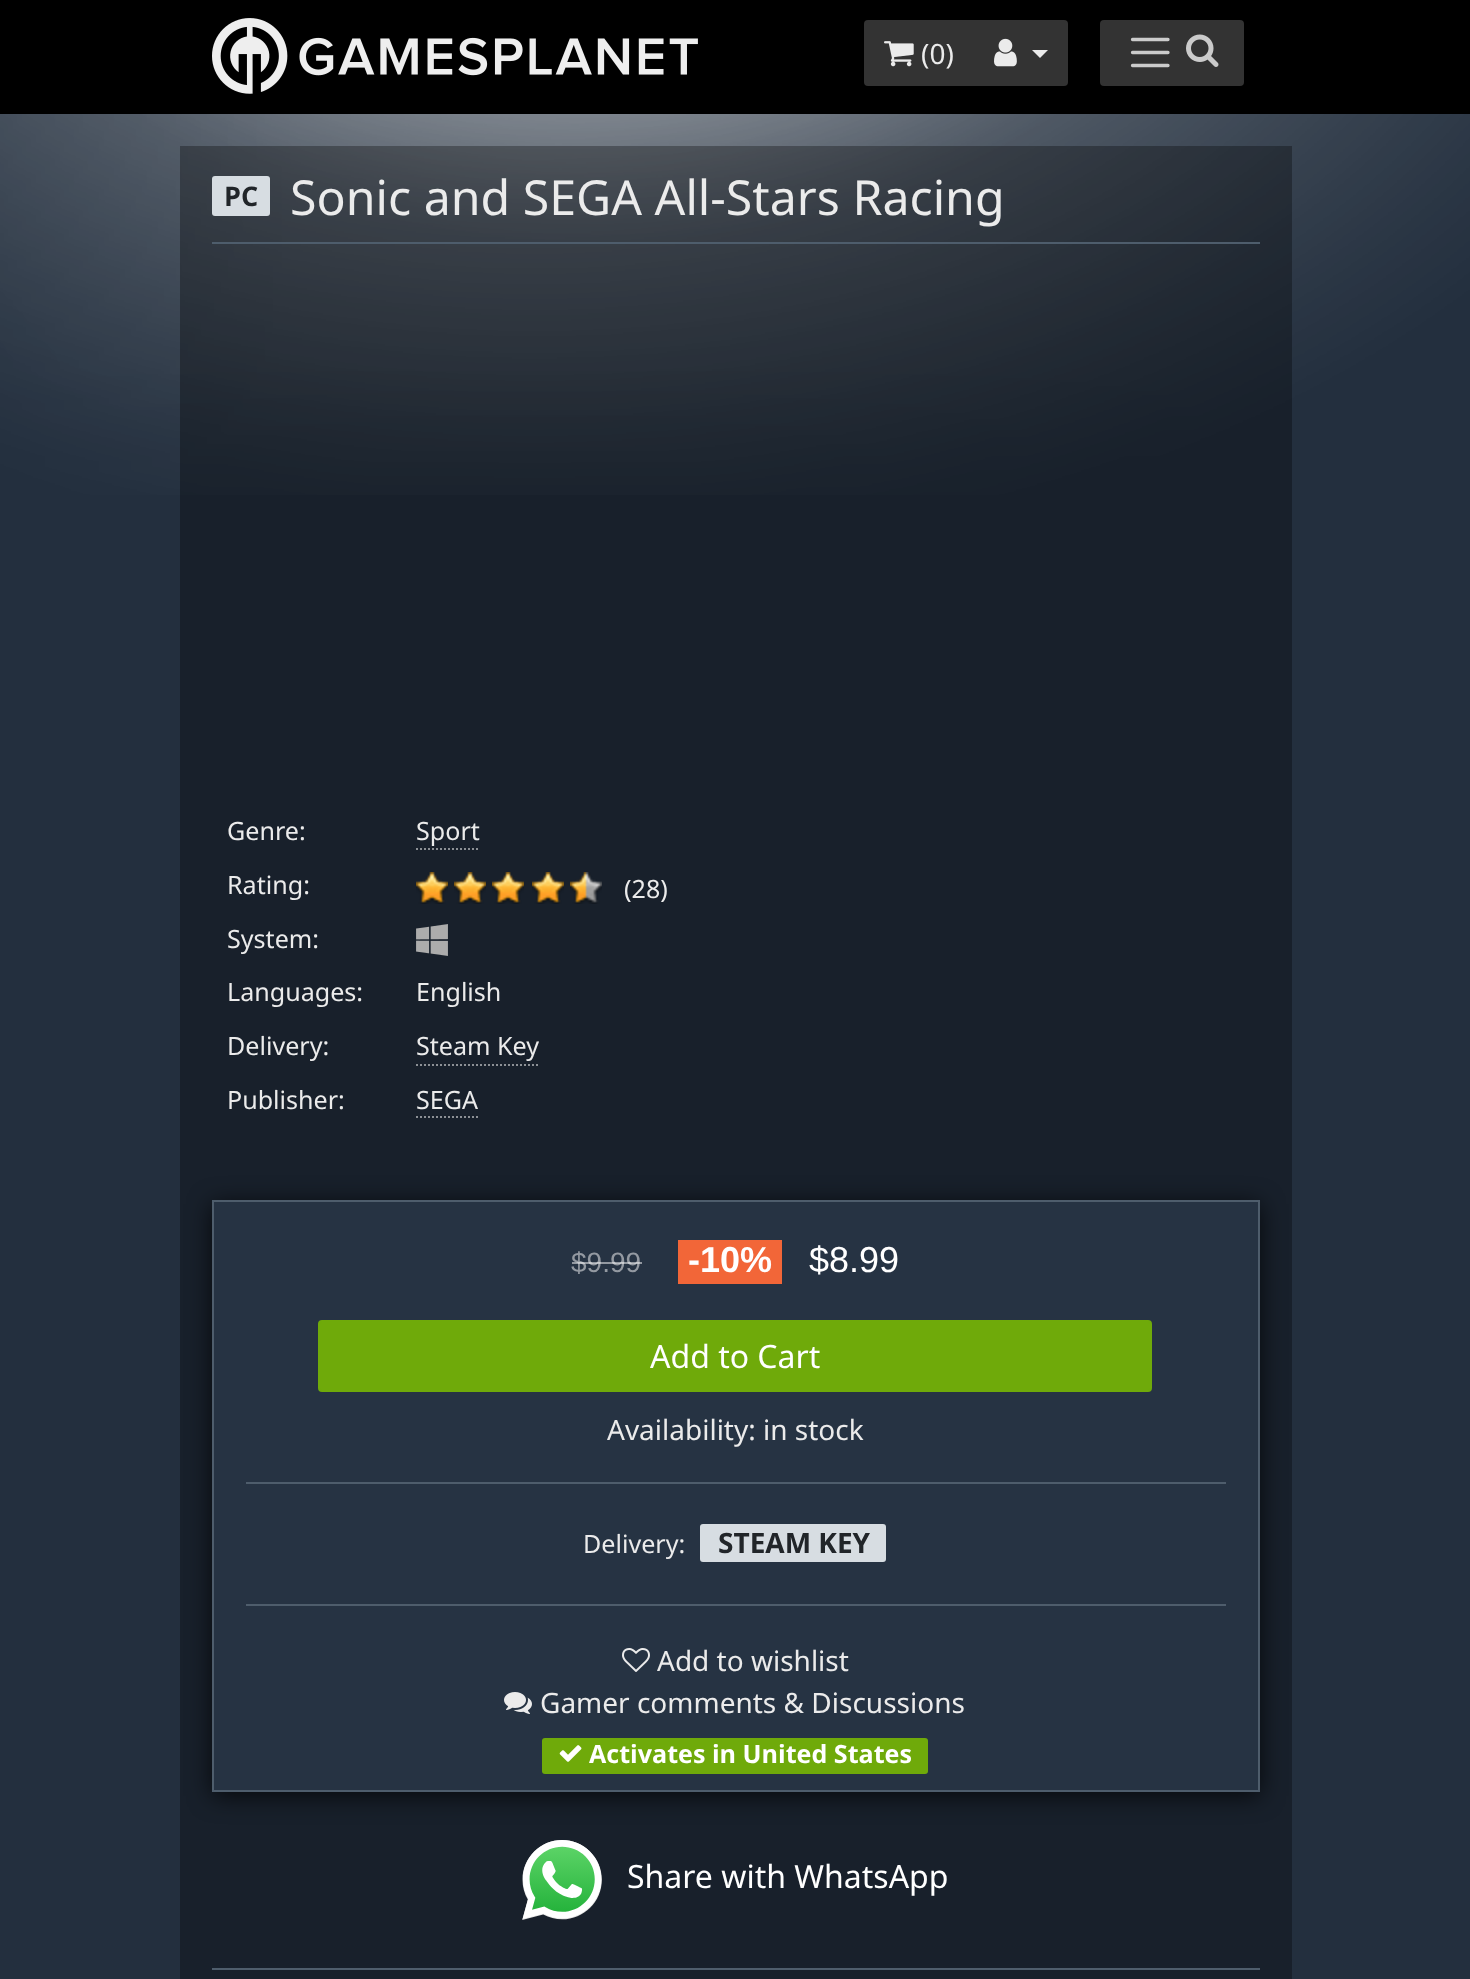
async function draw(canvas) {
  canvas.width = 1470;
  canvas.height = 1979;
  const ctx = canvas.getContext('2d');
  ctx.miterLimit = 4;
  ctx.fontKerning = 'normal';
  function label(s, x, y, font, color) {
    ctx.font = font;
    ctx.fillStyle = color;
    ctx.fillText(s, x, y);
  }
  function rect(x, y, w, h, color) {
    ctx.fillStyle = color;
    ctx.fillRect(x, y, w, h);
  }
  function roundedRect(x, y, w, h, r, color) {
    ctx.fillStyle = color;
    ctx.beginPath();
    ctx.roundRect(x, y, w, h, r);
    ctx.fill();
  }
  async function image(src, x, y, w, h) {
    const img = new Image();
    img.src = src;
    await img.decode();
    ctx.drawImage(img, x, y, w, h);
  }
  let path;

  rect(0, 0, 1470, 1979, '#232f3e');
  await image('assets/img1.png', 0, 114, 1470, 381);
  rect(0, 0, 1470, 114, '#000');
  await image('assets/img2.png', 212, 18, 486, 76);
  ctx.fillStyle = '#333';
  ctx.beginPath();
  ctx.roundRect(864, 20, 112, 66, [4, 0, 0, 4]);
  ctx.fill();
  await image('assets/img3.png', 884, 41, 30, 26);
  label('(0)', 921, 64, '28px Noto Sans', '#ebebeb');
  ctx.fillStyle = '#333';
  ctx.beginPath();
  ctx.roundRect(974, 20, 94, 66, [0, 4, 4, 0]);
  ctx.fill();
  await image('assets/img4.png', 994, 38, 23, 29);
  ctx.fillStyle = '#ebebeb';
  path = new Path2D('M1032 50H1048L1040 58Z');
  ctx.fill(path);
  roundedRect(1100, 20, 144, 66, 4, '#333');
  path = new Path2D('M1132.5 39.5H1168M1132.5 52.5H1168M1132.5 65.5H1168');
  ctx.strokeStyle = '#ccc';
  ctx.lineWidth = 3.3;
  ctx.lineCap = 'round';
  ctx.stroke(path);
  await image('assets/img5.png', 1186, 34, 33, 33);
  rect(180, 146, 1112, 1833, '#0000004d');
  roundedRect(212, 176, 58, 40, 3, '#d7dde2');
  label('PC', 224, 206, 'bold 27px Noto Sans', '#212529');
  rect(212, 242, 1048, 2, '#4e5d6c');
  label('Sonic and SEGA All-Stars Racing', 290, 215, '48.25px Noto Sans', '#ebebeb');
  label('Genre:', 227, 840, '25.1px Noto Sans', '#ebebeb');
  label('Sport', 416, 840, '25.1px Noto Sans', '#ebebeb');
  path = new Path2D('M416 849H480');
  ctx.strokeStyle = '#8c9095';
  ctx.lineWidth = 2;
  ctx.lineCap = 'butt';
  ctx.setLineDash([2, 2]);
  ctx.stroke(path);
  label('Rating:', 227, 894, '25.1px Noto Sans', '#ebebeb');
  await image('assets/img6.png', 416, 872, 32, 32);
  await image('assets/img6.png', 454, 872, 32, 32);
  await image('assets/img6.png', 492, 872, 32, 32);
  await image('assets/img6.png', 532, 872, 32, 32);
  await image('assets/img7.png', 570, 872, 32, 32);
  label('(28)', 624, 898, '25.1px Noto Sans', '#ebebeb');
  label('System:', 227, 948, '25.1px Noto Sans', '#ebebeb');
  await image('assets/img8.png', 416, 924, 32, 32);
  label('Languages:', 227, 1001, '25.1px Noto Sans', '#ebebeb');
  label('English', 416, 1001, '25.1px Noto Sans', '#ebebeb');
  label('Delivery:', 227, 1055, '25.1px Noto Sans', '#ebebeb');
  label('Steam Key', 416, 1055, '25.1px Noto Sans', '#ebebeb');
  path = new Path2D('M416 1065H538');
  ctx.stroke(path);
  label('Publisher:', 227, 1109, '25.1px Noto Sans', '#ebebeb');
  label('SEGA', 416, 1109, '25.1px Noto Sans', '#ebebeb');
  path = new Path2D('M416 1117H478');
  ctx.stroke(path);
  ctx.fillStyle = '#000000bf';
  ctx.filter = 'blur(12px)';
  ctx.beginPath();
  ctx.rect(212, 1204, 1048, 592);
  ctx.fill();
  ctx.filter = 'none';
  ctx.fillStyle = '#263343';
  ctx.beginPath();
  ctx.rect(213, 1201, 1046, 590);
  ctx.fill();
  ctx.strokeStyle = '#4e5d6c';
  ctx.setLineDash([]);
  ctx.stroke();
  label('$9.99', 571, 1272, '28px Liberation Sans', '#9399a1');
  rect(572, 1262, 70, 2, '#ffffff80');
  rect(678, 1240, 104, 44, '#f26638');
  label('-10%', 688, 1272, 'bold 36px Liberation Sans', '#fff');
  label('$8.99', 809, 1272, '36px Liberation Sans', '#fff');
  ctx.fillStyle = '#6faa0a';
  ctx.beginPath();
  ctx.roundRect(319, 1321, 832, 70, 3);
  ctx.fill();
  ctx.strokeStyle = '#6faa0a';
  ctx.stroke();
  label('Add to Cart', 650, 1368, '32px Noto Sans', '#fff');
  label('Availability: in stock', 607, 1440, '28px Noto Sans', '#ebebeb');
  rect(246, 1482, 980, 2, '#4e5d6c');
  label('Delivery:', 583, 1553, '25.1px Noto Sans', '#ebebeb');
  roundedRect(700, 1524, 186, 38, 3, '#d7dde2');
  label('STEAM KEY', 718, 1553, 'bold 28px Noto Sans', '#212529');
  rect(246, 1604, 980, 2, '#4e5d6c');
  await image('assets/img9.png', 622, 1648, 28, 24);
  label('Add to wishlist', 657, 1671, '28px Noto Sans', '#ebebeb');
  await image('assets/img10.png', 504, 1692, 28, 22);
  label('Gamer comments & Discussions', 540, 1713, '28px Noto Sans', '#ebebeb');
  roundedRect(542, 1738, 386, 36, 3, '#6faa0a');
  await image('assets/img11.png', 559, 1745, 23, 17);
  label('Activates in United States', 589, 1763, 'bold 25.1px Noto Sans', '#fff');
  await image('assets/img12.png', 522, 1840, 80, 80);
  label('Share with WhatsApp', 627, 1888, '32px Noto Sans', '#fff');
  rect(212, 1968, 1048, 2, '#4e5d6c');
}

draw(document.querySelector('canvas'));
